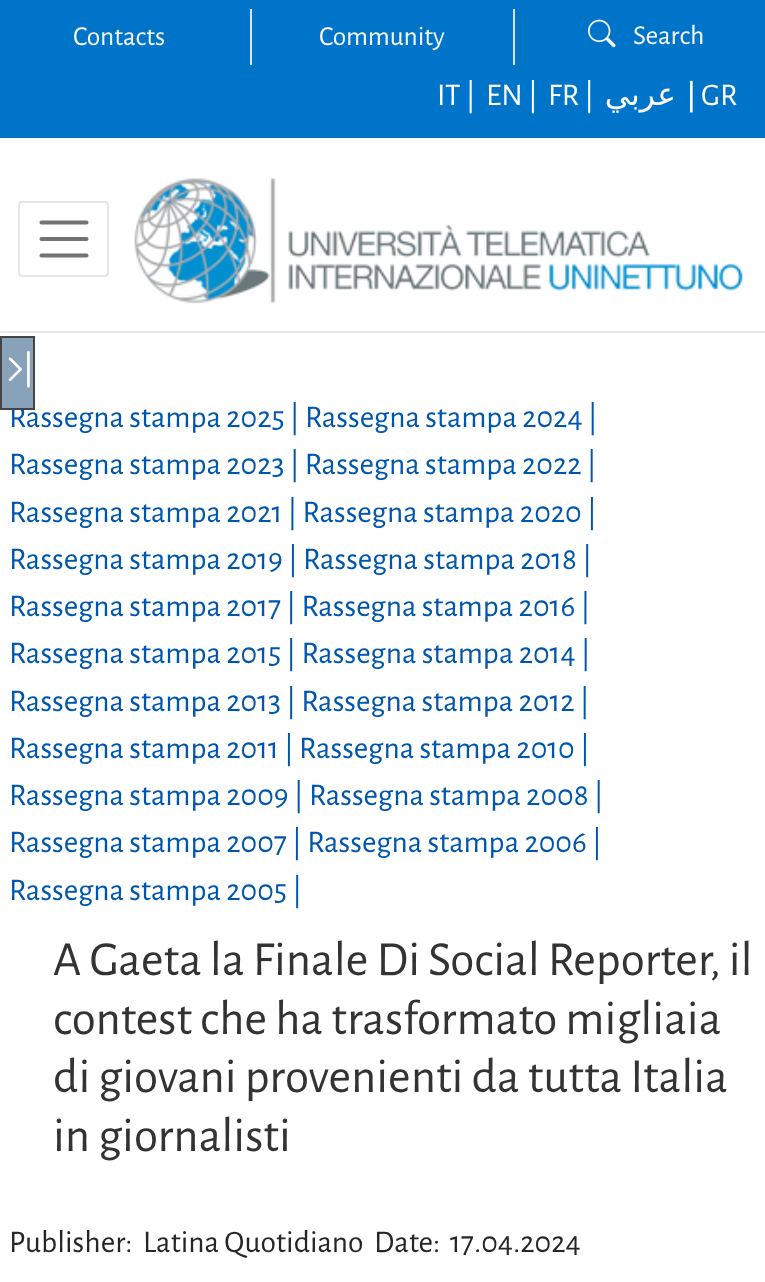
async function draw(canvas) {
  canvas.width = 765;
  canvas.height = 1282;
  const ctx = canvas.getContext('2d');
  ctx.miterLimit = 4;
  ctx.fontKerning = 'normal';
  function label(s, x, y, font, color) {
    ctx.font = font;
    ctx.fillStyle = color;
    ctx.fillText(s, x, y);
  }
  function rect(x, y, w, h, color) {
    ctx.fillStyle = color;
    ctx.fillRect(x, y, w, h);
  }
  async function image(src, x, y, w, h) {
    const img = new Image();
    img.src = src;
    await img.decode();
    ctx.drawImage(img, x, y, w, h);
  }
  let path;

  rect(0, 0, 765, 1282, '#fff');
  rect(0, 331, 765, 2, '#e8e8e8');
  rect(0, 0, 765, 138, '#0074c9');
  rect(250, 9, 2, 56, '#dee2e6');
  label('Contacts', 73, 45, '27.5px Alegreya Sans', '#f8f9fa');
  rect(513, 9, 2, 56, '#dee2e6');
  label('Community', 319, 45, '27.5px Alegreya Sans', '#f8f9fa');
  await image('assets/img1.png', 588, 19, 28, 29);
  label('Search', 633, 44, '27.5px Alegreya Sans', '#f8f9fa');
  label('IT |', 437, 105, '31.5px Alegreya Sans', '#fff');
  label('EN |', 486, 105, '31.5px Alegreya Sans', '#fff');
  label('FR |', 548, 105, '31.5px Alegreya Sans', '#fff');
  ctx.direction = 'rtl';
  label('عربي', 676, 105, '31.5px DejaVu Sans', '#fff');
  ctx.direction = 'ltr';
  label('|', 686, 105, '31.5px DejaVu Sans', '#fff');
  label('GR', 701, 105, '31.5px Alegreya Sans', '#fff');
  ctx.beginPath();
  ctx.roundRect(19, 202, 89, 74, 3);
  ctx.strokeStyle = '#e6e6e6';
  ctx.lineWidth = 2;
  ctx.stroke();
  path = new Path2D('M41.5 222.5H86.5M41.5 239H86.5M41.5 255.5H86.5');
  ctx.strokeStyle = '#737373';
  ctx.lineWidth = 4.1;
  ctx.lineCap = 'round';
  ctx.stroke(path);
  await image('assets/img2.png', 134, 178, 609, 126);
  label('Rassegna stampa 2025 | Rassegna stampa 2024 |', 9, 427, '31.5px Alegreya Sans', '#0056ac');
  ctx.fillStyle = '#87a2b9';
  ctx.beginPath();
  ctx.rect(1, 337, 33, 72);
  ctx.fill();
  ctx.strokeStyle = '#444';
  ctx.lineWidth = 2;
  ctx.stroke();
  await image('assets/img3.png', 8, 350, 22, 38);
  label('Rassegna stampa 2023 | Rassegna stampa 2022 |', 9, 474, '31.5px Alegreya Sans', '#0056ac');
  label('Rassegna stampa 2021 | Rassegna stampa 2020 |', 9, 522, '31.5px Alegreya Sans', '#0056ac');
  label('Rassegna stampa 2019 | Rassegna stampa 2018 |', 9, 569, '31.5px Alegreya Sans', '#0056ac');
  label('Rassegna stampa 2017 | Rassegna stampa 2016 |', 9, 616, '31.5px Alegreya Sans', '#0056ac');
  label('Rassegna stampa 2015 | Rassegna stampa 2014 |', 9, 663, '31.5px Alegreya Sans', '#0056ac');
  label('Rassegna stampa 2013 | Rassegna stampa 2012 |', 9, 711, '31.5px Alegreya Sans', '#0056ac');
  label('Rassegna stampa 2011 | Rassegna stampa 2010 |', 9, 758, '31.5px Alegreya Sans', '#0056ac');
  label('Rassegna stampa 2009 | Rassegna stampa 2008 |', 9, 805, '31.5px Alegreya Sans', '#0056ac');
  label('Rassegna stampa 2007 | Rassegna stampa 2006 |', 9, 852, '31.5px Alegreya Sans', '#0056ac');
  label('Rassegna stampa 2005 |', 9, 900, '31.5px Alegreya Sans', '#0056ac');
  label('A Gaeta la Finale Di Social Reporter, il', 53, 975, '49px Alegreya Sans', '#333');
  label('contest che ha trasformato migliaia', 53, 1034, '49px Alegreya Sans', '#333');
  label('di giovani provenienti da tutta Italia', 53, 1092, '49px Alegreya Sans', '#333');
  label('in giornalisti', 53, 1151, '49px Alegreya Sans', '#333');
  label('Publisher:', 9, 1252, '31.5px Alegreya Sans', '#262626');
  label('Latina Quotidiano', 143, 1252, '31.5px Alegreya Sans', '#262626');
  label('Date:', 374, 1252, '31.5px Alegreya Sans', '#262626');
  label('17.04.2024', 450, 1252, '31.5px Alegreya Sans', '#262626');
}

draw(document.querySelector('canvas'));
